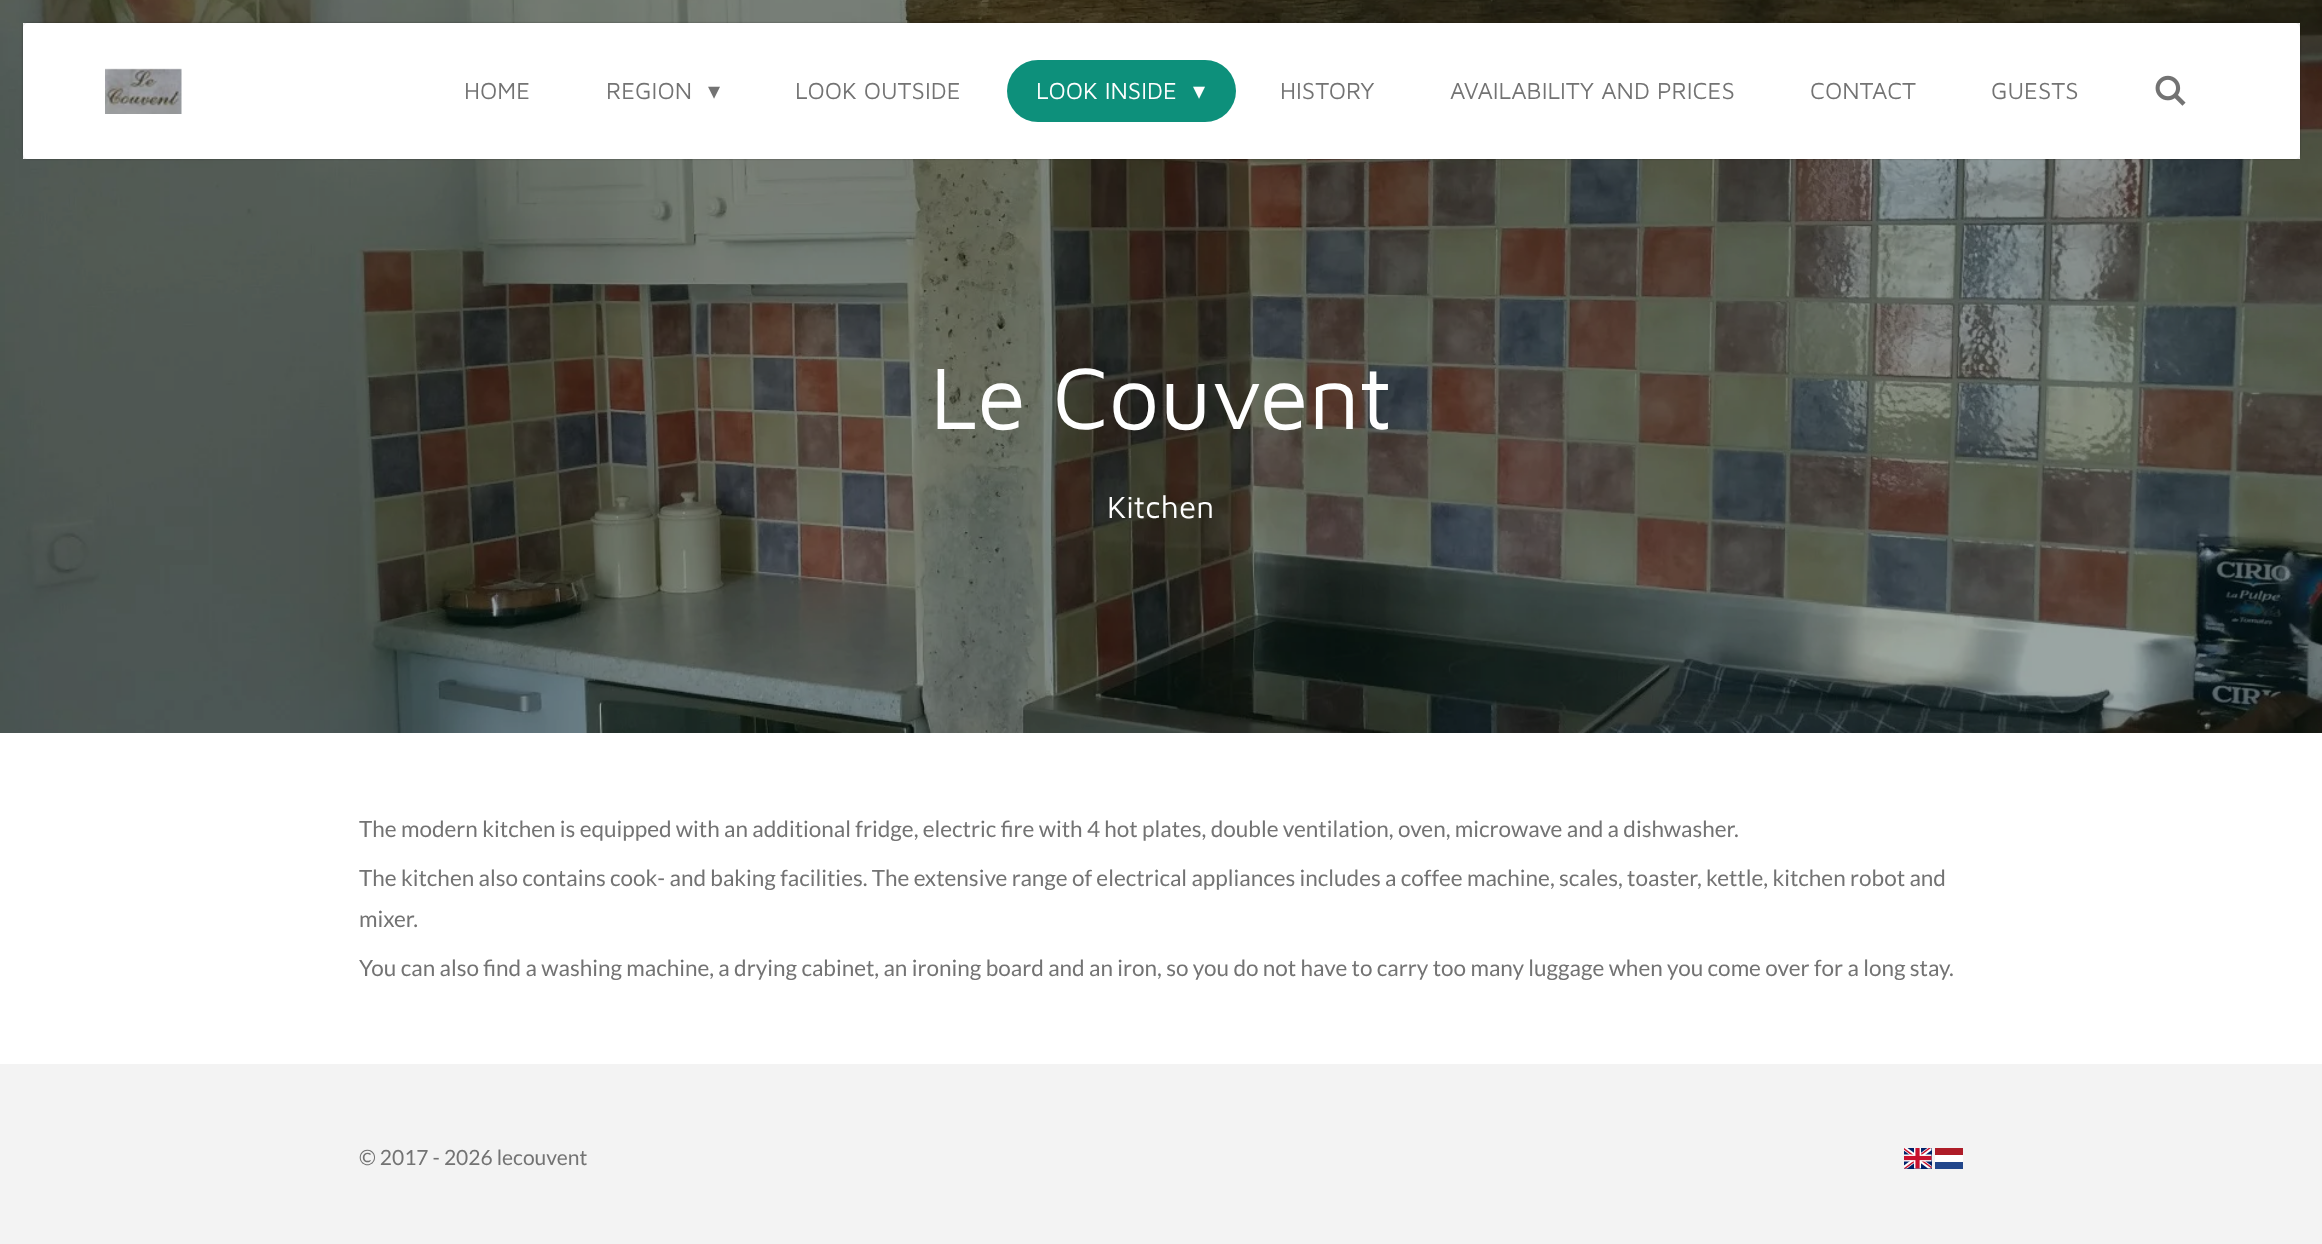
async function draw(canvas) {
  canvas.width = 2322;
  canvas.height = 1244;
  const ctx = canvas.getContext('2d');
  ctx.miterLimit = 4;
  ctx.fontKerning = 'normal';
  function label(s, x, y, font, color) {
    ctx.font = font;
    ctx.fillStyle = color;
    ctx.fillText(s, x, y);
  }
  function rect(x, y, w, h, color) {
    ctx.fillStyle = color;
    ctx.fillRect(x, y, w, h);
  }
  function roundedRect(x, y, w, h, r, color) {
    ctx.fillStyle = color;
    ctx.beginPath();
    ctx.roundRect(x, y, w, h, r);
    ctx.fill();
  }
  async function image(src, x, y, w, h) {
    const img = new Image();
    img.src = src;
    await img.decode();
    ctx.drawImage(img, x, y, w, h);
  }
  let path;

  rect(0, 0, 2322, 1244, '#fff');
  await image('assets/img3.png', 0, 0, 2322, 733);
  rect(23, 23, 2277, 136, '#fff');
  ctx.save();
  path = new Path2D('M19 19H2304V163H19ZM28 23H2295C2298 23 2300 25 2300 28V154C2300 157 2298 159 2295 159H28C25 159 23 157 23 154V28C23 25 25 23 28 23Z');
  ctx.clip(path, 'evenodd');
  ctx.fillStyle = '#0000004d';
  ctx.filter = 'blur(1px)';
  ctx.beginPath();
  ctx.roundRect(23, 23, 2277, 136, 5);
  ctx.fill();
  ctx.filter = 'none';
  ctx.restore();
  await image('assets/img1.png', 105, 68, 77, 46);
  label('HOME', 464, 99, '24px Maven Pro', '#737373');
  label('REGION', 606, 99, '24px Maven Pro', '#737373');
  label('▾', 708, 99, '24px DejaVu Sans', '#737373');
  label('LOOK OUTSIDE', 795, 99, '24px Maven Pro', '#737373');
  roundedRect(1007, 60, 229, 62, 31, '#0d907b');
  label('LOOK INSIDE', 1036, 99, '24px Maven Pro', '#fefefe');
  label('▾', 1193, 99, '24px DejaVu Sans', '#fefefe');
  label('HISTORY', 1280, 99, '24px Maven Pro', '#737373');
  label('AVAILABILITY AND PRICES', 1450, 99, '24px Maven Pro', '#737373');
  label('CONTACT', 1810, 99, '24px Maven Pro', '#737373');
  label('GUESTS', 1991, 99, '24px Maven Pro', '#737373');
  await image('assets/img2.png', 2155, 75, 31, 31);
  label('Le Couvent', 930, 429, '90px Maven Pro', '#fefefe');
  label('Kitchen', 1107, 518, '31.5px Maven Pro', '#fefefe');
  label('The modern kitchen is equipped with an additional fridge, electric fire with 4 hot plates, double ventilation, oven, microwave and a dishwasher.', 359, 837, '22.5px Lato', '#737373');
  label('The kitchen also contains cook- and baking facilities. The extensive range of electrical appliances includes a coffee machine, scales, toaster, kettle, kitchen robot and', 359, 886, '22.5px Lato', '#737373');
  label('mixer.', 359, 927, '22.5px Lato', '#737373');
  label('You can also find a washing machine, a drying cabinet, an ironing board and an iron, so you do not have to carry too many luggage when you come over for a long stay.', 359, 976, '22.5px Lato', '#737373');
  rect(0, 1064, 2322, 180, '#f3f3f3');
  label('© 2017 - 2026 lecouvent', 359, 1165, '21px Lato', '#737373');
  await image('assets/img4.png', 1904, 1148, 28, 21);
  rect(1935, 1162, 28, 7, '#21468b');
  rect(1935, 1155, 28, 7, '#fff');
  rect(1935, 1148, 28, 7, '#ae1c28');
}

draw(document.querySelector('canvas'));
